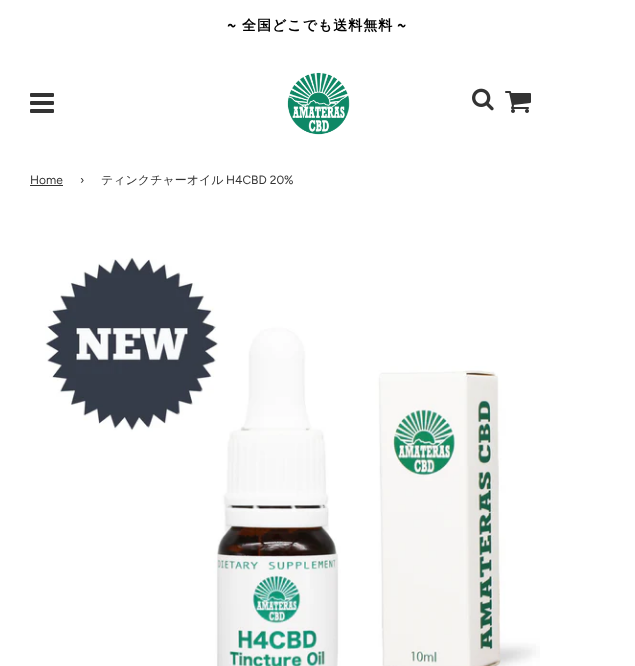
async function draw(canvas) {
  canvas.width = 635;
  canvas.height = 666;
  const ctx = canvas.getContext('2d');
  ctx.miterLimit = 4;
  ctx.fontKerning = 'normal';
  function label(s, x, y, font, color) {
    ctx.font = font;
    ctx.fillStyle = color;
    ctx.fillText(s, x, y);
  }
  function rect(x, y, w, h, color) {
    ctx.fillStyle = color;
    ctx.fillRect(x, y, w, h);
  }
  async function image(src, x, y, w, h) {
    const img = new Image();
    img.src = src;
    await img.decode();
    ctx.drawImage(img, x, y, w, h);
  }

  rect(0, 0, 635, 666, '#fff');
  ctx.letterSpacing = '1px';
  label('~', 227, 30, 'bold 14px Figtree', '#000');
  label('全国どこでも送料無料', 242, 30, 'bold 14px WenQuanYi Zen Hei', '#000');
  label('~', 397, 30, 'bold 14px Figtree', '#000');
  await image('assets/img1.png', 30, 93, 24, 20);
  await image('assets/img2.png', 287, 72, 63, 63);
  await image('assets/img3.png', 472, 88, 22, 23);
  await image('assets/img4.png', 505, 91, 26, 22);
  ctx.letterSpacing = '0px';
  label('Home', 30, 184, '12px Figtree', '#333');
  rect(30, 185, 33, 1, '#333');
  label('›', 80, 184, '12px Figtree', '#333');
  label('ティンクチャーオイル', 101, 184, '500 12px WenQuanYi Zen Hei', '#333');
  label('H4CBD 20%', 226, 184, '12px Figtree', '#333');
  await image('assets/img5.png', 45, 257, 495, 409);
}

draw(document.querySelector('canvas'));
